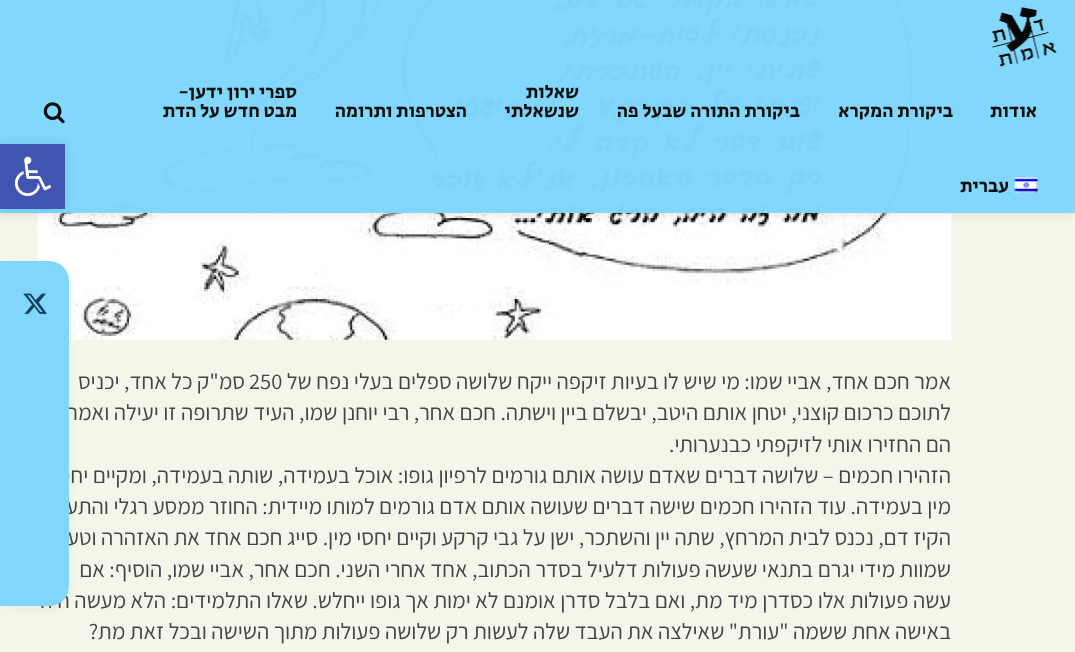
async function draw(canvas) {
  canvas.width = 1075;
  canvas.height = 652;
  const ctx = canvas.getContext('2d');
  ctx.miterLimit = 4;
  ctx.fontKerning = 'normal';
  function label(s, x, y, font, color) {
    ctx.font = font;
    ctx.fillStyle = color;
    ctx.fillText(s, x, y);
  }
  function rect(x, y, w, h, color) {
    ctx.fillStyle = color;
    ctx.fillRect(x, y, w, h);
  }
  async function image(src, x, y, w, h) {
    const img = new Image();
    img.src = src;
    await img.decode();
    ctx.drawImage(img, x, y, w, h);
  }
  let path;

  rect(0, 0, 1075, 652, '#f2f7ea');
  await image('assets/img4.png', 997, 33, 32, 26);
  await image('assets/img5.png', 37, 0, 915, 340);
  ctx.save();
  path = new Path2D('M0 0H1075V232H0ZM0 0H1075V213H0Z');
  ctx.clip(path, 'evenodd');
  ctx.fillStyle = '#0000001a';
  ctx.filter = 'blur(6px)';
  ctx.beginPath();
  ctx.rect(0, 0, 1075, 213);
  ctx.fill();
  ctx.filter = 'none';
  ctx.restore();
  rect(0, 0, 1075, 213, '#80d6fcfa');
  await image('assets/img1.png', 992, 7, 65, 60);
  ctx.direction = 'rtl';
  label('אודות', 1037, 117, '19.1px Secular One', '#0f0f0e');
  label('ביקורת המקרא', 953, 117, '19.1px Secular One', '#0f0f0e');
  label('ביקורת התורה שבעל פה', 800, 117, '19.1px Secular One', '#0f0f0e');
  label('שאלות', 579, 98, '19.1px Secular One', '#0f0f0e');
  label('שנשאלתי', 579, 117, '19.1px Secular One', '#0f0f0e');
  label('הצטרפות ותרומה', 467, 117, '19.1px Secular One', '#0f0f0e');
  label('ספרי ירון ידען-', 297, 98, '19.1px Secular One', '#0f0f0e');
  label('מבט חדש על הדת', 297, 117, '19.1px Secular One', '#0f0f0e');
  await image('assets/img2.png', 1014, 177, 24, 16);
  label('עברית', 1009, 192, '19.1px Secular One', '#0f0f0e');
  await image('assets/img3.png', 43, 102, 22, 22);
  label('אמר חכם אחד, אביי שמו: מי שיש לו בעיות זיקפה ייקח שלושה ספלים בעלי נפח של', 951, 389, '22.5px Assistant', '#444');
  ctx.direction = 'ltr';
  label('250', 249, 389, '22.5px Assistant', '#444');
  ctx.direction = 'rtl';
  label('סמ"ק כל אחד, יכניס', 245, 389, '22.5px Assistant', '#444');
  label('לתוכם כרכום קוצני, יטחן אותם היטב, יבשלם ביין וישתה. חכם אחר, רבי יוחנן שמו, העיד שתרופה זו יעילה ואמר:', 951, 420, '22.5px Assistant', '#444');
  label('הם החזירו אותי לזיקפתי כבנערותי.', 951, 452, '22.5px Assistant', '#444');
  label('הזהירו חכמים – שלושה דברים שאדם עושה אותם גורמים לרפיון גופו: אוכל בעמידה, שותה בעמידה, ומקיים יחסי', 951, 483, '22.5px Assistant', '#444');
  label('מין בעמידה. עוד הזהירו חכמים שישה דברים שעושה אותם אדם גורמים למותו מיידית: החוזר ממסע רגלי והתעייף,', 951, 514, '22.5px Assistant', '#444');
  label('הקיז דם, נכנס לבית המרחץ, שתה יין והשתכר, ישן על גבי קרקע וקיים יחסי מין. סייג חכם אחד את האזהרה וטען', 951, 545, '22.5px Assistant', '#444');
  label('שמוות מידי יגרם בתנאי שעשה פעולות דלעיל בסדר הכתוב, אחד אחרי השני. חכם אחר, אביי שמו, הוסיף: אם', 951, 577, '22.5px Assistant', '#444');
  label('עשה פעולות אלו כסדרן מיד מת, ואם בלבל סדרן אומנם לא ימות אך גופו ייחלש. שאלו התלמידים: הלא מעשה היה', 951, 608, '22.5px Assistant', '#444');
  label('באישה אחת ששמה "עורת" שאילצה את העבד שלה לעשות רק שלושה פעולות מתוך השישה ובכל זאת מת?', 951, 639, '22.5px Assistant', '#444');
  ctx.fillStyle = '#0000001a';
  ctx.filter = 'blur(6px)';
  ctx.beginPath();
  ctx.rect(0, 144, 65, 65);
  ctx.fill();
  ctx.filter = 'none';
  rect(0, 144, 65, 65, '#4054b2');
  await image('assets/img6.png', 14, 156, 38, 40);
  ctx.fillStyle = '#0000000a';
  ctx.filter = 'blur(5px)';
  ctx.beginPath();
  ctx.roundRect(0, 264, 69, 345, 20);
  ctx.fill();
  ctx.filter = 'none';
  ctx.fillStyle = '#80d6fc';
  ctx.beginPath();
  ctx.roundRect(0, 261, 69, 345, [0, 20, 20, 0]);
  ctx.fill();
  await image('assets/img7.png', 23, 293, 24, 21);
}

draw(document.querySelector('canvas'));
